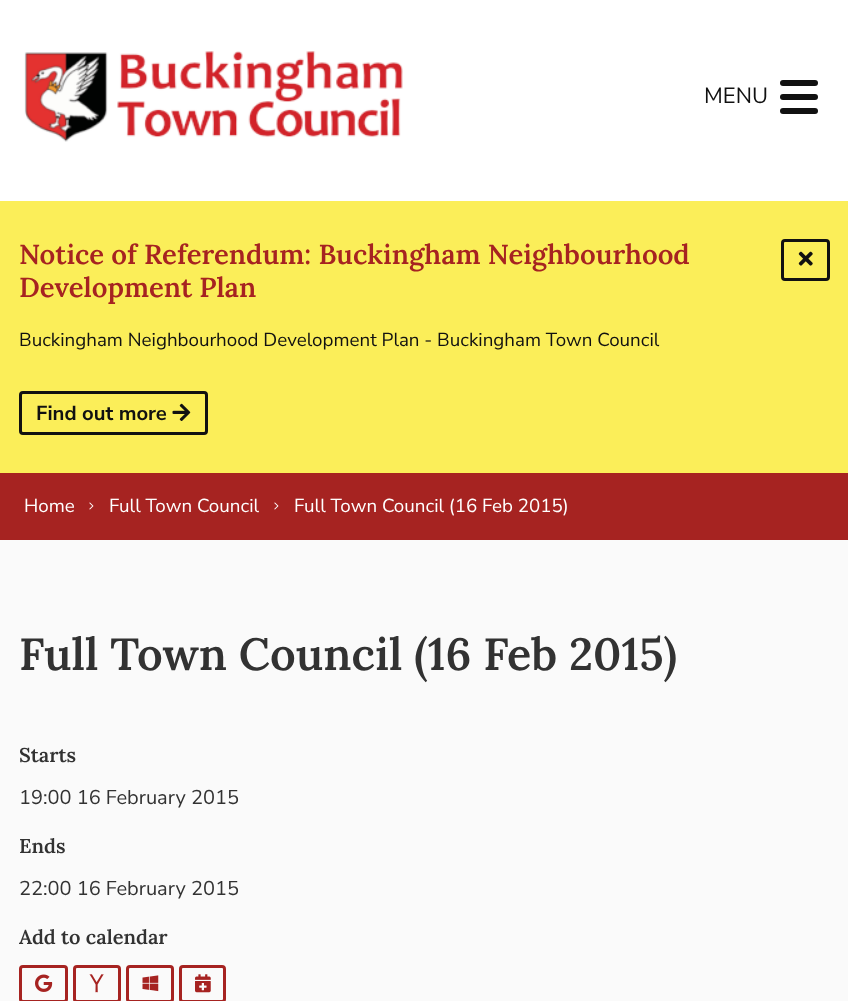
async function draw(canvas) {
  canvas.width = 848;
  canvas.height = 1001;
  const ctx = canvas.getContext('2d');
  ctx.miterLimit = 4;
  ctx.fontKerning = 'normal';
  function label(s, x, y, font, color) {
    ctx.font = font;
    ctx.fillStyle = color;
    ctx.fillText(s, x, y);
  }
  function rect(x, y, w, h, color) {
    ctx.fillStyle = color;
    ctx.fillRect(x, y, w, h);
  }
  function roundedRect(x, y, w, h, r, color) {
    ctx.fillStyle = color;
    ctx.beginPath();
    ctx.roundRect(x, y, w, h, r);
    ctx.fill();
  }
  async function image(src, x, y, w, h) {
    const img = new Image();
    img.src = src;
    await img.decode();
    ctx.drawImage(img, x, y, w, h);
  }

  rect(0, 0, 848, 1001, '#fafafa');
  rect(0, 0, 848, 201, '#fff');
  await image('assets/img1.png', 24, 51, 379, 91);
  label('MENU', 704, 103, '22px Nunito Sans', '#111');
  roundedRect(780, 108, 38, 6, 3, '#111');
  roundedRect(780, 80, 38, 6, 3, '#111');
  roundedRect(780, 94, 38, 6, 3, '#111');
  rect(0, 201, 848, 272, '#fbee59');
  label('Notice of Referendum: Buckingham Neighbourhood', 19, 264, '600 27.5px Lora', '#a62321');
  label('Development Plan', 19, 297, '600 27.5px Lora', '#a62321');
  ctx.beginPath();
  ctx.roundRect(782.5, 240.5, 46, 39, 2.5);
  ctx.strokeStyle = '#111';
  ctx.lineWidth = 3;
  ctx.stroke();
  await image('assets/img2.png', 798, 251, 15, 15);
  label('Buckingham Neighbourhood Development Plan - Buckingham Town Council', 19, 346, '18.75px Nunito Sans', '#111');
  ctx.beginPath();
  ctx.roundRect(20.5, 392.5, 186, 41, 2.5);
  ctx.stroke();
  label('Find out more', 36, 420, 'bold 20.25px Nunito Sans', '#111');
  await image('assets/img3.png', 172, 403, 19, 18);
  rect(0, 473, 848, 67, '#a62321');
  label('Home', 24, 512, '18.75px Nunito Sans', '#fff');
  await image('assets/img4.png', 89, 502, 5, 8);
  label('Full Town Council', 109, 512, '18.75px Nunito Sans', '#fff');
  await image('assets/img4.png', 274, 502, 5, 8);
  label('Full Town Council (16 Feb 2015)', 294, 512, '18.75px Nunito Sans', '#fff');
  label('Full Town Council (16 Feb 2015)', 19, 670, '600 45px Lora', '#323232');
  label('Starts', 19, 762, '600 20px Lora', '#323232');
  label('19:00 16 February 2015', 19, 804, '20px Nunito Sans', '#323232');
  label('Ends', 19, 853, '600 20px Lora', '#323232');
  label('22:00 16 February 2015', 19, 895, '20px Nunito Sans', '#323232');
  label('Add to calendar', 19, 944, '600 20px Lora', '#323232');
  ctx.beginPath();
  ctx.roundRect(20.5, 966.5, 46, 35, 2.5);
  ctx.strokeStyle = '#a62321';
  ctx.stroke();
  await image('assets/img5.png', 35, 974, 18, 18);
  ctx.beginPath();
  ctx.roundRect(74.5, 966.5, 45, 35, 2.5);
  ctx.stroke();
  await image('assets/img6.png', 89, 974, 15, 19);
  ctx.beginPath();
  ctx.roundRect(127.5, 966.5, 45, 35, 2.5);
  ctx.stroke();
  await image('assets/img7.png', 142, 975, 17, 17);
  ctx.beginPath();
  ctx.roundRect(180.5, 966.5, 44, 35, 2.5);
  ctx.stroke();
  await image('assets/img8.png', 195, 974, 16, 19);
}

draw(document.querySelector('canvas'));
